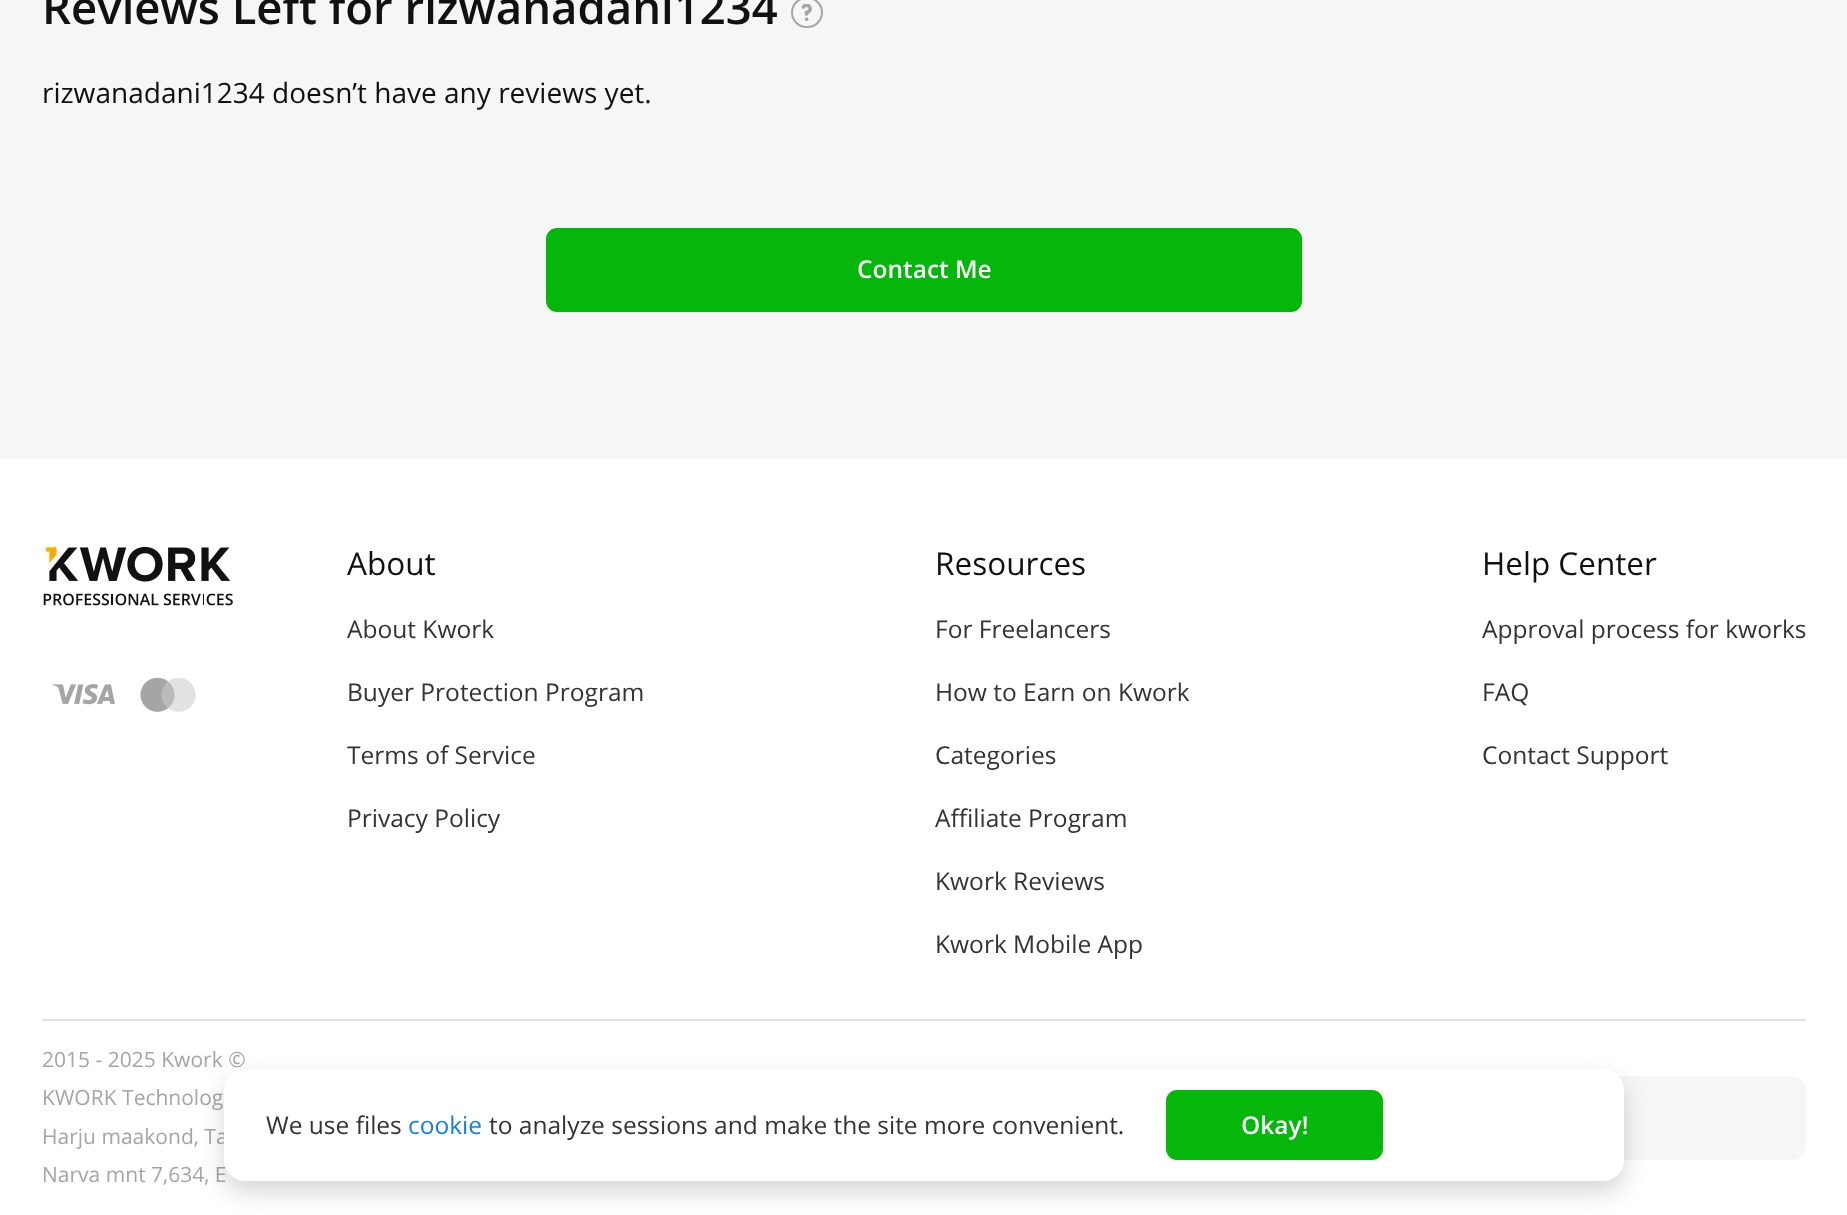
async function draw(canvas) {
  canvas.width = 1847;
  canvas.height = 1215;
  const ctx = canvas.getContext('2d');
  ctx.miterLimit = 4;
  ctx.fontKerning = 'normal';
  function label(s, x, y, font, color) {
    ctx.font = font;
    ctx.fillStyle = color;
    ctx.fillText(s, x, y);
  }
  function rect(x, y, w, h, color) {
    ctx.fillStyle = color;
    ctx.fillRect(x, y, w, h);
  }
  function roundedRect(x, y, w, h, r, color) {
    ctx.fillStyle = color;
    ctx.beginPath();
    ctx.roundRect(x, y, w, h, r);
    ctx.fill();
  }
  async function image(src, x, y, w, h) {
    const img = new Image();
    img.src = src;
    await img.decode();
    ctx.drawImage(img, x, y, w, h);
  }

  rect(0, 0, 1847, 1215, '#f6f6f6');
  label('Reviews Left for rizwanadani1234', 42, 24, '600 45.5px Open Sans', '#111');
  ctx.beginPath();
  ctx.roundRect(792, -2, 30, 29, 14.5);
  ctx.strokeStyle = '#a5a5a5';
  ctx.lineWidth = 2;
  ctx.stroke();
  await image('assets/img1.png', 801, 4, 11, 17);
  label('rizwanadani1234 doesn’t have any reviews yet.', 42, 103, '28px Open Sans', '#111');
  ctx.fillStyle = '#04b70a';
  ctx.beginPath();
  ctx.roundRect(547, 229, 754, 82, 10);
  ctx.fill();
  ctx.strokeStyle = '#04b70a';
  ctx.stroke();
  label('Contact Me', 857, 278, '600 24.5px Open Sans', '#fff');
  rect(0, 459, 1847, 756, '#fff');
  await image('assets/img2.png', 46, 546, 185, 36);
  await image('assets/img3.png', 43, 593, 190, 13);
  await image('assets/img4.png', 52, 684, 63, 21);
  await image('assets/img5.png', 140, 677, 56, 35);
  label('About', 347, 575, '31.5px Open Sans', '#111');
  label('About Kwork', 347, 638, '24.5px Open Sans', '#333');
  label('Buyer Protection Program', 347, 701, '24.5px Open Sans', '#333');
  label('Terms of Service', 347, 764, '24.5px Open Sans', '#333');
  label('Privacy Policy', 347, 827, '24.5px Open Sans', '#333');
  label('Resources', 935, 575, '31.5px Open Sans', '#111');
  label('For Freelancers', 935, 638, '24.5px Open Sans', '#333');
  label('How to Earn on Kwork', 935, 701, '24.5px Open Sans', '#333');
  label('Categories', 935, 764, '24.5px Open Sans', '#333');
  label('Affiliate Program', 935, 827, '24.5px Open Sans', '#333');
  label('Kwork Reviews', 935, 890, '24.5px Open Sans', '#333');
  label('Kwork Mobile App', 935, 953, '24.5px Open Sans', '#333');
  label('Help Center', 1482, 575, '31.5px Open Sans', '#111');
  label('Approval process for kworks', 1482, 638, '24.5px Open Sans', '#333');
  label('FAQ', 1482, 701, '24.5px Open Sans', '#333');
  label('Contact Support', 1482, 764, '24.5px Open Sans', '#333');
  rect(42, 1019, 1764, 2, '#e2e2e2');
  label('2015 - 2025 Kwork ©', 42, 1067, '21px Open Sans', '#a5a5a5');
  label('KWORK Technolog', 42, 1105, '21px Open Sans', '#a5a5a5');
  label('Harju maakond, Ta', 42, 1144, '21px Open Sans', '#a5a5a5');
  label('Narva mnt 7,634, E', 42, 1182, '21px Open Sans', '#a5a5a5');
  roundedRect(1561, 1076, 245, 84, 14, '#f6f6f6');
  ctx.fillStyle = '#00000029';
  ctx.filter = 'blur(12px)';
  ctx.beginPath();
  ctx.roundRect(224, 1080, 1400, 112, 21);
  ctx.fill();
  ctx.filter = 'none';
  roundedRect(224, 1069, 1400, 112, 21, '#fff');
  label('We use files', 266, 1134, '24.5px Open Sans', '#333');
  label('cookie', 408, 1134, '24.5px Open Sans', '#177de5');
  label('to analyze sessions and make the site more convenient.', 489, 1134, '24.5px Open Sans', '#333');
  ctx.fillStyle = '#04b70a';
  ctx.beginPath();
  ctx.roundRect(1167, 1091, 215, 68, 10);
  ctx.fill();
  ctx.stroke();
  label('Okay!', 1241, 1134, '600 24.5px Open Sans', '#fff');
}

draw(document.querySelector('canvas'));
